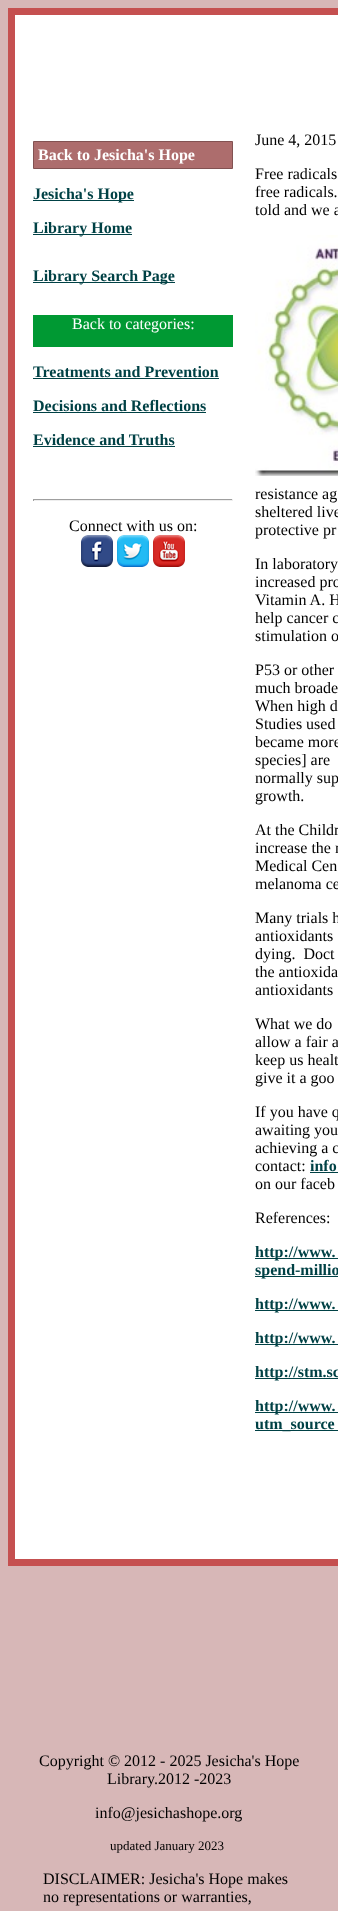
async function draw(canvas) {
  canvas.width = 338;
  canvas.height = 1911;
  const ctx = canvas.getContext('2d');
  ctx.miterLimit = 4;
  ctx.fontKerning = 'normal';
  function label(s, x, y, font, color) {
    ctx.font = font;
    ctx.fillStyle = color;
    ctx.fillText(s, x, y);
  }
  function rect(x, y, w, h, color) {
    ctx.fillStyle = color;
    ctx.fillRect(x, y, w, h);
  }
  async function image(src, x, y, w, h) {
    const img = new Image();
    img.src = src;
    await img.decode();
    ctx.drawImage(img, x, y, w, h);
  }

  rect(0, 0, 338, 1911, '#d7b7b7');
  ctx.fillStyle = '#fff';
  ctx.beginPath();
  ctx.rect(11.5, 11.5, 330, 1551);
  ctx.fill();
  ctx.strokeStyle = '#c55050';
  ctx.lineWidth = 7;
  ctx.stroke();
  ctx.fillStyle = '#ad6d6d';
  ctx.beginPath();
  ctx.rect(33.5, 141.5, 199, 27);
  ctx.fill();
  ctx.strokeStyle = '#825252';
  ctx.lineWidth = 1;
  ctx.stroke();
  label('Back to Jesicha\'s Hope', 38, 160, 'bold 16px Liberation Serif', '#fff');
  rect(33, 200, 101, 1, '#004145');
  label('Jesicha\'s Hope', 33, 199, 'bold 16px Liberation Serif', '#004145');
  rect(33, 234, 99, 1, '#004145');
  label('Library Home', 33, 233, 'bold 16px Liberation Serif', '#004145');
  rect(33, 282, 142, 1, '#004145');
  label('Library Search Page', 33, 281, 'bold 16px Liberation Serif', '#004145');
  rect(33, 315, 200, 32, '#093');
  label('Back to categories:', 72, 329, '16px Liberation Serif', '#fff');
  label('Treatments and Prevention', 33, 377, 'bold 16px Liberation Serif', '#004145');
  rect(33, 378, 186, 1, '#004145');
  label('Decisions and Reflections', 33, 411, 'bold 16px Liberation Serif', '#004145');
  rect(33, 412, 173, 1, '#004145');
  label('Evidence and Truths', 33, 445, 'bold 16px Liberation Serif', '#004145');
  rect(33, 446, 142, 1, '#004145');
  rect(33, 499, 200, 1, '#9f9f9f');
  rect(232, 499, 1, 2, '#eee');
  rect(33, 500, 200, 1, '#eee');
  rect(33, 499, 1, 2, '#9f9f9f');
  label('Connect with us on:', 69, 531, '16px Liberation Serif', '#000');
  await image('assets/img1.png', 81, 535, 32, 32);
  await image('assets/img2.png', 117, 535, 32, 32);
  await image('assets/img3.png', 153, 535, 32, 32);
  label('June 4, 2015', 255, 145, '16px Liberation Serif', '#000');
  label('Free radicals', 255, 179, '16px Liberation Serif', '#000');
  label('free radicals.', 255, 197, '16px Liberation Serif', '#000');
  label('told and we a', 255, 215, '16px Liberation Serif', '#000');
  await image('assets/img4.png', 255, 235, 83, 241);
  label('resistance ag', 255, 499, '16px Liberation Serif', '#000');
  label('sheltered live', 255, 517, '16px Liberation Serif', '#000');
  label('protective pr', 255, 535, '16px Liberation Serif', '#000');
  label('In laboratory', 255, 569, '16px Liberation Serif', '#000');
  label('increased pro', 255, 587, '16px Liberation Serif', '#000');
  label('Vitamin A. H', 255, 605, '16px Liberation Serif', '#000');
  label('help cancer c', 255, 623, '16px Liberation Serif', '#000');
  label('stimulation o', 255, 641, '16px Liberation Serif', '#000');
  label('P53 or other', 255, 675, '16px Liberation Serif', '#000');
  label('much broade', 255, 693, '16px Liberation Serif', '#000');
  label('When high d', 255, 711, '16px Liberation Serif', '#000');
  label('Studies used', 255, 729, '16px Liberation Serif', '#000');
  label('became more', 255, 747, '16px Liberation Serif', '#000');
  label('species] are', 255, 765, '16px Liberation Serif', '#000');
  label('normally sup', 255, 783, '16px Liberation Serif', '#000');
  label('growth.', 255, 801, '16px Liberation Serif', '#000');
  label('At the Childr', 255, 835, '16px Liberation Serif', '#000');
  label('increase the r', 255, 853, '16px Liberation Serif', '#000');
  label('Medical Cen', 255, 871, '16px Liberation Serif', '#000');
  label('melanoma ce', 255, 889, '16px Liberation Serif', '#000');
  label('Many trials h', 255, 923, '16px Liberation Serif', '#000');
  label('antioxidants', 255, 941, '16px Liberation Serif', '#000');
  label('dying.  Doct', 255, 959, '16px Liberation Serif', '#000');
  label('the antioxida', 255, 977, '16px Liberation Serif', '#000');
  label('antioxidants', 255, 995, '16px Liberation Serif', '#000');
  label('What we do', 255, 1029, '16px Liberation Serif', '#000');
  label('allow a fair a', 255, 1047, '16px Liberation Serif', '#000');
  label('keep us healt', 255, 1065, '16px Liberation Serif', '#000');
  label('give it a goo', 255, 1083, '16px Liberation Serif', '#000');
  label('If you have q', 255, 1117, '16px Liberation Serif', '#000');
  label('awaiting you', 255, 1135, '16px Liberation Serif', '#000');
  label('achieving a c', 255, 1153, '16px Liberation Serif', '#000');
  label('contact:', 255, 1171, '16px Liberation Serif', '#000');
  label('info', 310, 1171, 'bold 16px Liberation Serif', '#004145');
  rect(310, 1172, 28, 1, '#004145');
  label('on our faceb', 255, 1189, '16px Liberation Serif', '#000');
  label('References:', 255, 1223, '16px Liberation Serif', '#000');
  rect(255, 1258, 83, 1, '#004145');
  label('http://www.', 255, 1257, 'bold 16px Liberation Serif', '#004145');
  rect(255, 1276, 83, 1, '#004145');
  label('spend-millio', 255, 1275, 'bold 16px Liberation Serif', '#004145');
  rect(255, 1310, 83, 1, '#004145');
  label('http://www.', 255, 1309, 'bold 16px Liberation Serif', '#004145');
  rect(255, 1344, 83, 1, '#004145');
  label('http://www.', 255, 1343, 'bold 16px Liberation Serif', '#004145');
  rect(255, 1378, 83, 1, '#004145');
  label('http://stm.sc', 255, 1377, 'bold 16px Liberation Serif', '#004145');
  rect(255, 1412, 83, 1, '#004145');
  label('http://www.', 255, 1411, 'bold 16px Liberation Serif', '#004145');
  rect(255, 1430, 83, 1, '#004145');
  label('utm_source', 255, 1429, 'bold 16px Liberation Serif', '#004145');
  label('Copyright © 2012 - 2025 Jesicha\'s Hope', 39, 1766, '16px Liberation Serif', '#000');
  label('Library.2012 -2023', 107, 1784, '16px Liberation Serif', '#000');
  label('info@jesichashope.org', 95, 1818, '16px Liberation Serif', '#000');
  label('updated January 2023', 110, 1850, '13px Liberation Serif', '#000');
  label('DISCLAIMER: Jesicha\'s Hope makes', 43, 1884, '16px Liberation Serif', '#000');
  label('no representations or warranties,', 43, 1902, '16px Liberation Serif', '#000');
}

draw(document.querySelector('canvas'));
